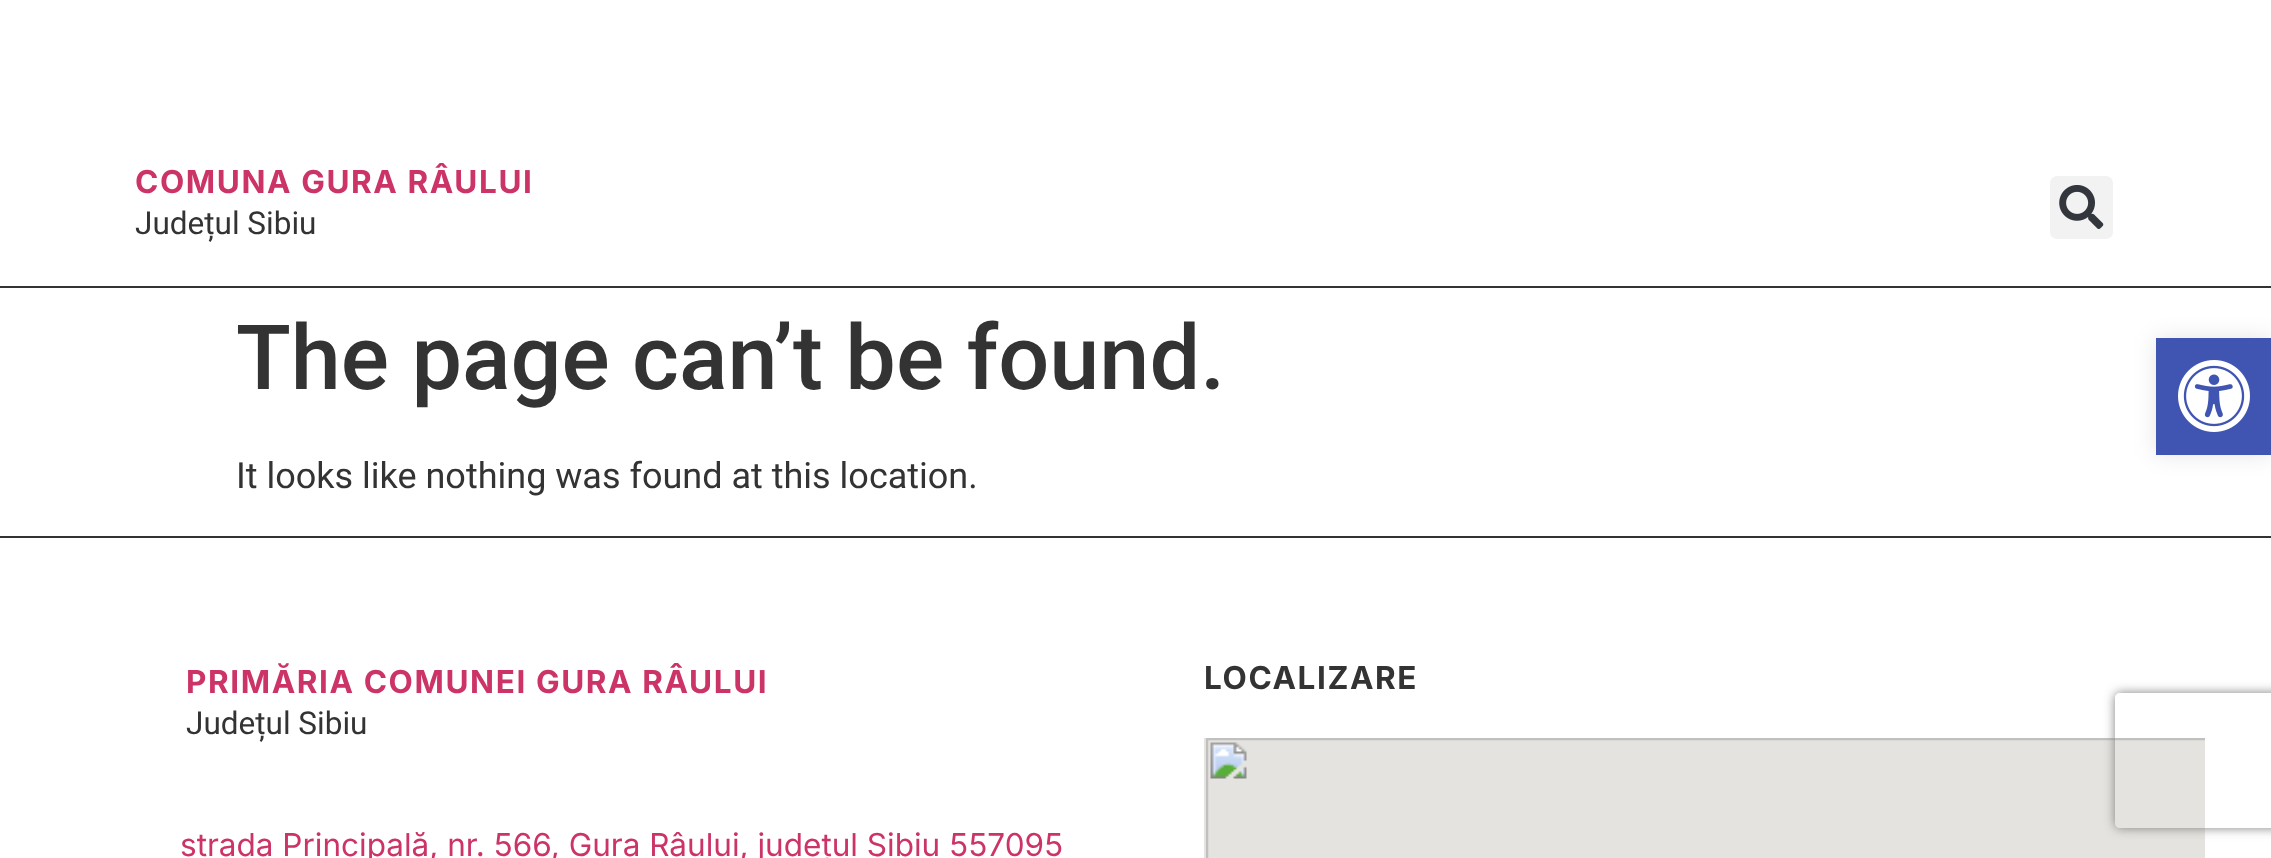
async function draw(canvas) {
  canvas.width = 2271;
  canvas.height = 858;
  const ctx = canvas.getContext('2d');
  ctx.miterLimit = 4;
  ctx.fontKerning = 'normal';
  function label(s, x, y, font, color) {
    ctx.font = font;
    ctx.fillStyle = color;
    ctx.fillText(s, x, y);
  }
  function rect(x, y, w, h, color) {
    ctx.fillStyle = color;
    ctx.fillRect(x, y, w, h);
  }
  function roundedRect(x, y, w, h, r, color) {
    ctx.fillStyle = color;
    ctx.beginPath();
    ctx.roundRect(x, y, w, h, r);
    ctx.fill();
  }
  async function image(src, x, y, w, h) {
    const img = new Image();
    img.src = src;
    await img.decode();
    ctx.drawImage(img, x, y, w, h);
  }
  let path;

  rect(0, 0, 2271, 858, '#fff');
  rect(0, 286, 2271, 2, '#333');
  ctx.letterSpacing = '1.6px';
  label('COMUNA GURA RÂULUI', 135, 193, 'bold 31.5px Inter', '#c36');
  ctx.letterSpacing = '0px';
  label('Județul Sibiu', 135, 234, '31.5px Roboto', '#333');
  roundedRect(2050, 176, 63, 63, 7, '#f2f2f2');
  await image('assets/img1.png', 2059, 185, 45, 44);
  label('The page can’t be found.', 236, 389, '500 90px Roboto', '#333');
  label('It looks like nothing was found at this location.', 236, 488, '36px Roboto', '#333');
  ctx.fillStyle = '#0000001a';
  ctx.filter = 'blur(11px)';
  ctx.beginPath();
  ctx.rect(2156, 338, 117, 117);
  ctx.fill();
  ctx.filter = 'none';
  rect(2156, 338, 115, 117, '#4054b2');
  await image('assets/img2.png', 2178, 360, 72, 72);
  rect(0, 536, 2271, 2, '#333');
  ctx.letterSpacing = '1.6px';
  label('PRIMĂRIA COMUNEI GURA RÂULUI', 186, 693, 'bold 31.5px Inter', '#c36');
  ctx.letterSpacing = '0px';
  label('Județul Sibiu', 186, 734, '31.5px Roboto', '#333');
  label('strada Principală, nr. 566, Gura Râului, județul Sibiu 557095', 180, 856, '31.5px Inter', '#c36');
  ctx.letterSpacing = '1.6px';
  label('LOCALIZARE', 1204, 689, 'bold 31.5px Inter', '#333');
  await image('assets/img3.png', 1204, 738, 1001, 120);
  ctx.save();
  path = new Path2D('M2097 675H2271V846H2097ZM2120 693H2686C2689 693 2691 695 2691 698V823C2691 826 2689 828 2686 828H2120C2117 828 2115 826 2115 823V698C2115 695 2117 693 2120 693Z');
  ctx.clip(path, 'evenodd');
  ctx.fillStyle = '#808080';
  ctx.filter = 'blur(5.5px)';
  ctx.beginPath();
  ctx.roundRect(2115, 693, 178, 135, 5);
  ctx.fill();
  ctx.filter = 'none';
  ctx.restore();
}

draw(document.querySelector('canvas'));
